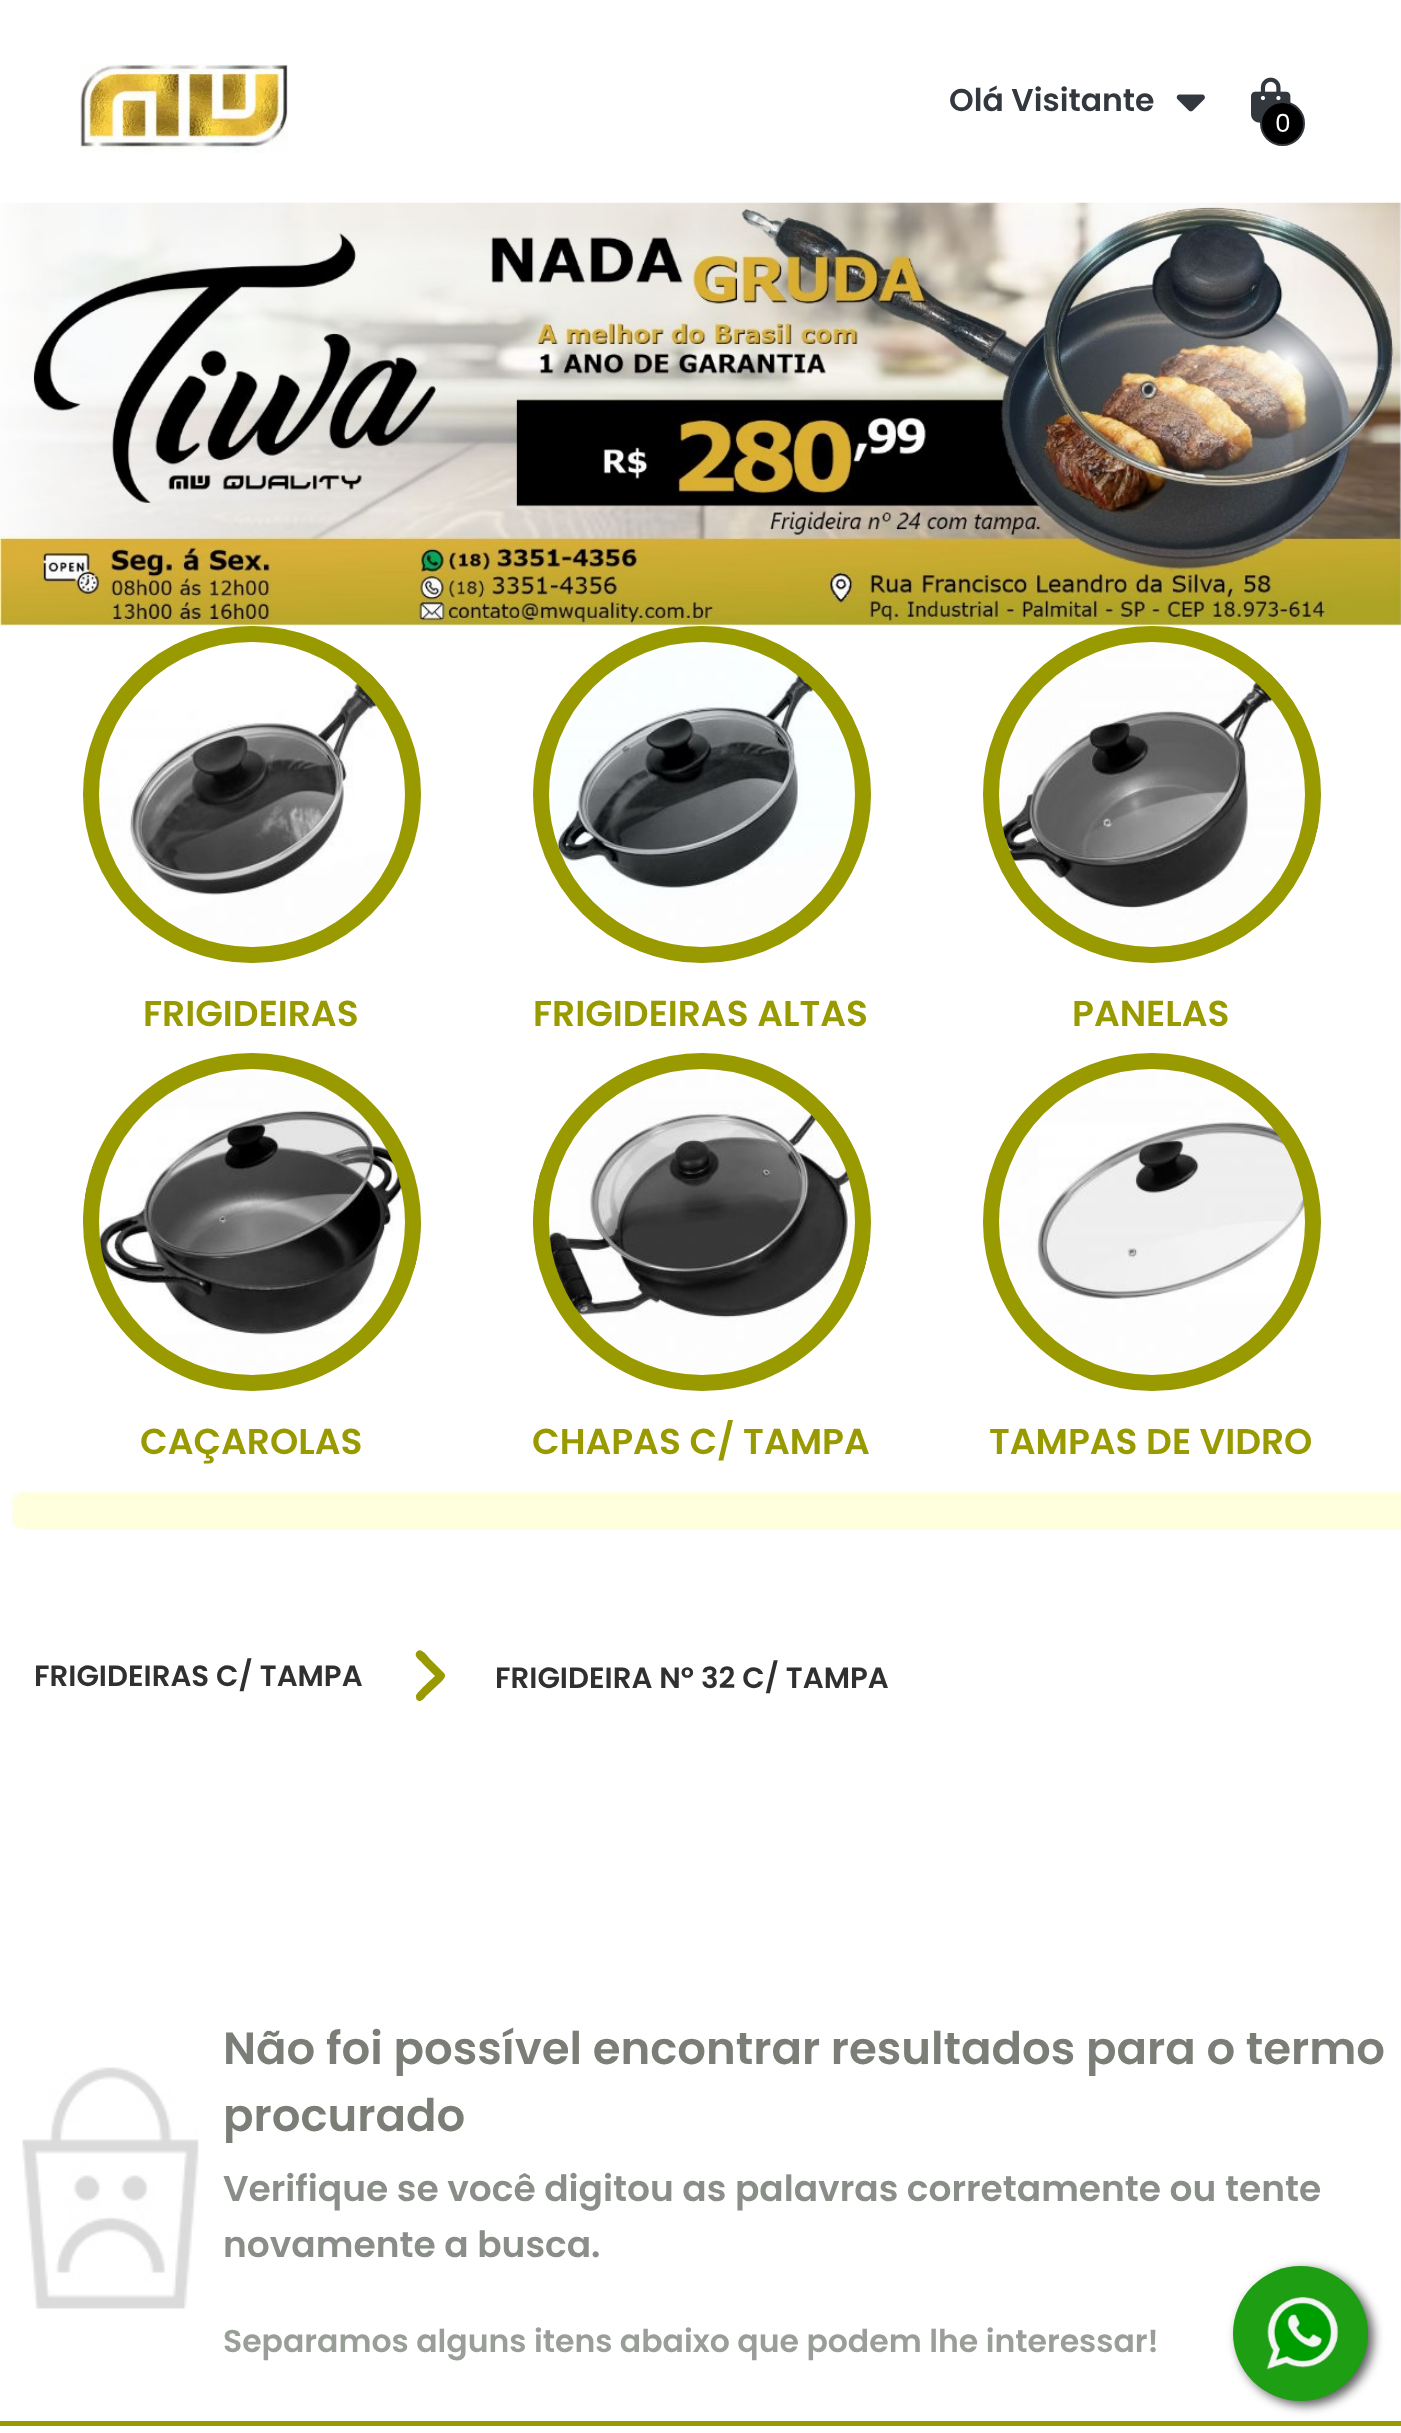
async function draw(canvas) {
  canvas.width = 1401;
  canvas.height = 2433;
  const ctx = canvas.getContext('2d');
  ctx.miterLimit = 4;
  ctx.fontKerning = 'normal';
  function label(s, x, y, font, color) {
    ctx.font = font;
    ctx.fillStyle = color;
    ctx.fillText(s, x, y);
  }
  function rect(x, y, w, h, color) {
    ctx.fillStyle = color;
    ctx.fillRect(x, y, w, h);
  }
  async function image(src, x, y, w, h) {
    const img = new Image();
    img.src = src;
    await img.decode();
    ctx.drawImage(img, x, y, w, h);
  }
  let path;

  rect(0, 0, 1401, 2433, '#fff');
  await image('assets/img1.png', 80, 64, 208, 89);
  label('Olá Visitante', 949, 111, '600 31.5px Poppins', '#32383e');
  await image('assets/img2.png', 1176, 94, 29, 18);
  await image('assets/img3.png', 1251, 77, 40, 46);
  ctx.fillStyle = '#000';
  ctx.beginPath();
  ctx.arc(1282.5, 123.5, 21.5, 0, 2 * Math.PI);
  ctx.fill();
  ctx.strokeStyle = '#32383e';
  ctx.lineWidth = 2;
  ctx.stroke();
  label('0', 1275, 132, '25px Poppins', '#fff');
  await image('assets/img4.png', 0, 202, 1401, 424);
  await image('assets/img5.png', 83, 625, 338, 338);
  ctx.beginPath();
  ctx.roundRect(91, 634, 322, 321, 160.5);
  ctx.strokeStyle = '#990';
  ctx.lineWidth = 16;
  ctx.stroke();
  label('FRIGIDEIRAS', 143, 1026, '600 36px Poppins', '#990');
  await image('assets/img6.png', 533, 625, 338, 338);
  ctx.beginPath();
  ctx.roundRect(541, 634, 322, 321, 160.5);
  ctx.stroke();
  label('FRIGIDEIRAS ALTAS', 533, 1026, '600 36px Poppins', '#990');
  await image('assets/img7.png', 983, 625, 338, 338);
  ctx.beginPath();
  ctx.roundRect(991, 634, 322, 321, 160.5);
  ctx.stroke();
  label('PANELAS', 1072, 1026, '600 36px Poppins', '#990');
  await image('assets/img8.png', 83, 1053, 338, 337);
  ctx.beginPath();
  ctx.arc(252, 1222, 161, 0, 2 * Math.PI);
  ctx.stroke();
  label('CAÇAROLAS', 140, 1454, '600 36px Poppins', '#990');
  await image('assets/img9.png', 533, 1053, 338, 337);
  ctx.beginPath();
  ctx.arc(702, 1222, 161, 0, 2 * Math.PI);
  ctx.stroke();
  label('CHAPAS C/ TAMPA', 532, 1454, '600 36px Poppins', '#990');
  await image('assets/img10.png', 983, 1053, 338, 337);
  ctx.beginPath();
  ctx.arc(1152, 1222, 161, 0, 2 * Math.PI);
  ctx.stroke();
  label('TAMPAS DE VIDRO', 989, 1454, '600 36px Poppins', '#990');
  await image('assets/img11.png', 11, 1491, 1390, 39);
  label('FRIGIDEIRAS C/ TAMPA', 34, 1686, '600 29.25px Poppins', '#303030');
  ctx.fillStyle = '#990';
  path = new Path2D('M444 1673C447 1676 443 1680 441 1682L426 1696C424 1699 420 1703 417 1700C416 1699 416 1697 416 1696C416 1693 432 1679 435 1676L423 1664C421 1661 414 1657 416 1653C420 1645 428 1657 430 1659Z');
  ctx.fill(path);
  label('FRIGIDEIRA Nº 32 C/ TAMPA', 495, 1688, '600 29.25px Poppins', '#303030');
  rect(0, 2421, 1401, 5, '#990');
  await image('assets/img12.png', 22, 2067, 177, 242);
  label('Não foi possível encontrar resultados para o termo', 223, 2064, '600 45px Poppins', '#7a7e77');
  label('procurado', 223, 2131, '600 45px Poppins', '#7a7e77');
  label('Verifique se você digitou as palavras corretamente ou tente', 223, 2201, '600 36px Poppins', '#8a8e88');
  label('novamente a busca.', 223, 2257, '600 36px Poppins', '#8a8e88');
  label('Separamos alguns itens abaixo que podem lhe interessar!', 223, 2352, '600 31.5px Poppins', '#9a9e99');
  ctx.fillStyle = '#585858';
  ctx.filter = 'blur(5.5px)';
  ctx.beginPath();
  ctx.roundRect(1238, 2270, 135, 135, 67.5);
  ctx.fill();
  ctx.filter = 'none';
  ctx.fillStyle = '#1d9e13';
  ctx.beginPath();
  ctx.arc(1300.5, 2333.5, 67.5, 0, 2 * Math.PI);
  ctx.fill();
  await image('assets/img13.png', 1266, 2297, 73, 73);
}

draw(document.querySelector('canvas'));
